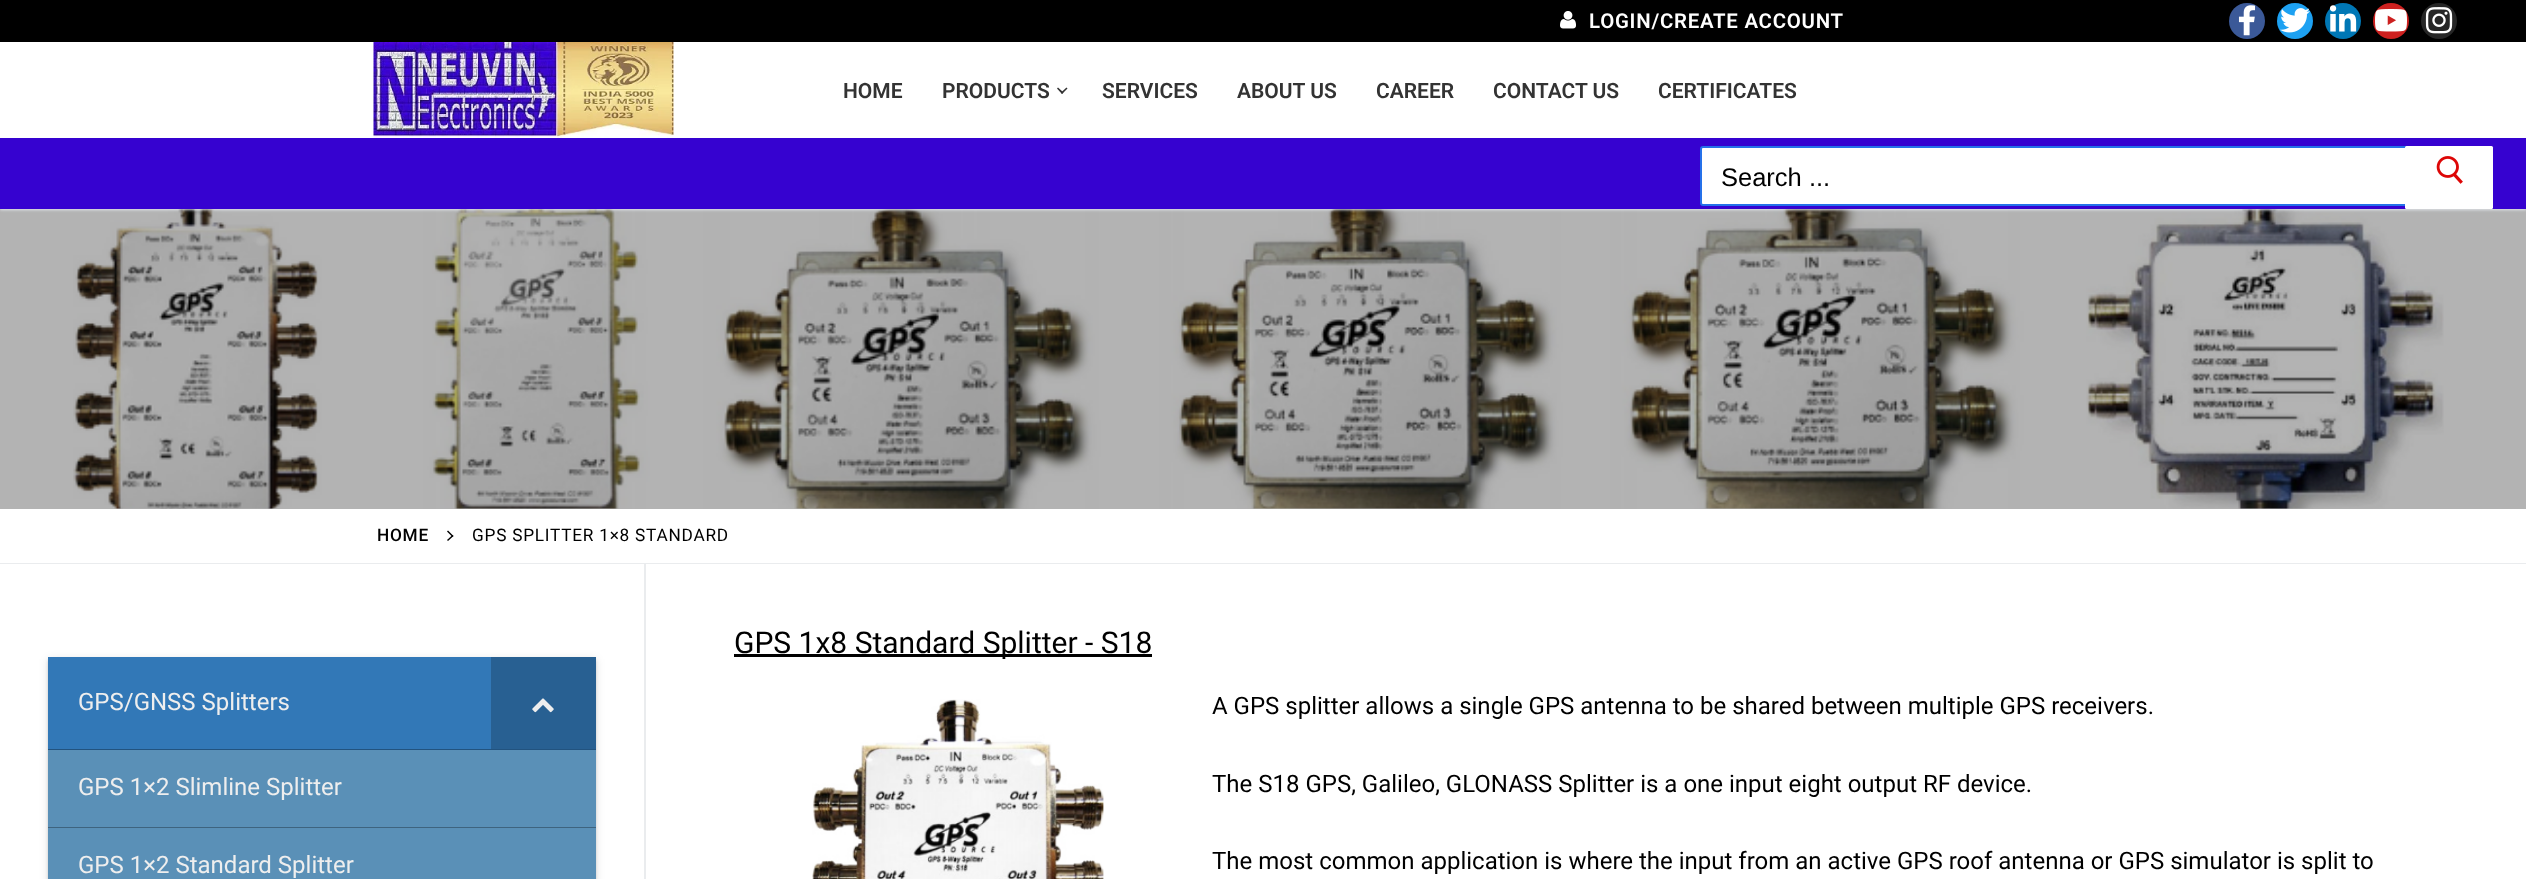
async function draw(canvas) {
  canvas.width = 2526;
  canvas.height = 879;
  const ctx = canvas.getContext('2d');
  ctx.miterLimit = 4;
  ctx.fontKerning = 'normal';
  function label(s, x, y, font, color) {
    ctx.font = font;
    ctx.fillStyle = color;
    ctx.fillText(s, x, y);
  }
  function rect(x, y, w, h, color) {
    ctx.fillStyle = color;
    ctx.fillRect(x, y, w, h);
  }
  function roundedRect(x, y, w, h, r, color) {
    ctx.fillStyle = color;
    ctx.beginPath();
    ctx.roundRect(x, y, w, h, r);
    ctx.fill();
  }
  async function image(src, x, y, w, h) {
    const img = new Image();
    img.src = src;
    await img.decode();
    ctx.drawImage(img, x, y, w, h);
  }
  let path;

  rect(0, 0, 2526, 879, '#fff');
  rect(0, 209, 2526, 300, '#b3b3b3');
  rect(0, 0, 2526, 42, '#000');
  await image('assets/img1.png', 1560, 11, 16, 18);
  ctx.letterSpacing = '0.75px';
  label('LOGIN/CREATE ACCOUNT', 1589, 28, '600 20.4px Roboto', '#fff');
  ctx.fillStyle = '#3b5998';
  ctx.beginPath();
  ctx.arc(2247, 21, 18, 0, 2 * Math.PI);
  ctx.fill();
  await image('assets/img2.png', 2238, 5, 18, 31);
  ctx.fillStyle = '#1da1f2';
  ctx.beginPath();
  ctx.arc(2295, 21, 18, 0, 2 * Math.PI);
  ctx.fill();
  await image('assets/img3.png', 2280, 8, 30, 25);
  ctx.fillStyle = '#0077b5';
  ctx.beginPath();
  ctx.arc(2343, 21, 18, 0, 2 * Math.PI);
  ctx.fill();
  await image('assets/img4.png', 2329, 5, 28, 27);
  ctx.fillStyle = '#cd201f';
  ctx.beginPath();
  ctx.arc(2391, 21, 18, 0, 2 * Math.PI);
  ctx.fill();
  await image('assets/img5.png', 2375, 9, 32, 23);
  ctx.fillStyle = '#262626';
  ctx.beginPath();
  ctx.arc(2439, 21, 18, 0, 2 * Math.PI);
  ctx.fill();
  await image('assets/img6.png', 2425, 7, 28, 27);
  await image('assets/img9.png', 73, 209, 2371, 300);
  ctx.fillStyle = '#e1e5ea';
  ctx.filter = 'blur(1.5px)';
  ctx.beginPath();
  ctx.rect(0, 140, 2526, 70);
  ctx.fill();
  ctx.filter = 'none';
  await image('assets/img7.png', 373, 42, 301, 96);
  ctx.letterSpacing = '0px';
  label('HOME', 843, 98, '600 21px Roboto', '#333');
  label('PRODUCTS', 942, 98, '600 21px Roboto', '#333');
  path = new Path2D('M1062 94L1057 88.5L1058 87.5L1063.5 92.5Z');
  ctx.fill(path);
  path = new Path2D('M1062 94L1061 92.5L1066.5 87.5L1067.5 88.5Z');
  ctx.fill(path);
  label('SERVICES', 1102, 98, '600 21px Roboto', '#333');
  label('ABOUT US', 1237, 98, '600 21px Roboto', '#333');
  label('CAREER', 1376, 98, '600 21px Roboto', '#333');
  label('CONTACT US', 1493, 98, '600 21px Roboto', '#333');
  label('CERTIFICATES', 1658, 98, '600 21px Roboto', '#333');
  rect(0, 138, 2526, 71, '#3602d0');
  ctx.fillStyle = '#fff';
  ctx.beginPath();
  ctx.roundRect(1701, 147, 755, 58, 2);
  ctx.fill();
  ctx.strokeStyle = '#2571ea';
  ctx.lineWidth = 2;
  ctx.stroke();
  label('Search ...', 1721, 186, '25.5px Liberation Sans', '#000');
  roundedRect(2405, 146, 88, 63, 1.5, '#fff');
  await image('assets/img8.png', 2436, 156, 27, 28);
  rect(0, 563, 2526, 1, '#eaecee');
  ctx.letterSpacing = '0.75px';
  label('HOME', 377, 541, '500 17.25px Roboto', '#000');
  path = new Path2D('M453.5 536L448 541L447 540L452.5 535Z');
  ctx.fill(path);
  path = new Path2D('M453.5 536L452.5 537L447 531.5L448 530.5Z');
  ctx.fill(path);
  label('GPS SPLITTER 1×8 STANDARD', 472, 541, '17.25px Roboto', '#000');
  ctx.fillStyle = '#0000001f';
  ctx.filter = 'blur(4px)';
  ctx.beginPath();
  ctx.rect(48, 659, 548, 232);
  ctx.fill();
  ctx.filter = 'none';
  ctx.fillStyle = '#00000024';
  ctx.filter = 'blur(1.5px)';
  ctx.beginPath();
  ctx.rect(48, 660, 548, 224);
  ctx.fill();
  ctx.filter = 'none';
  rect(48, 657, 548, 93, '#3278b7');
  rect(48, 749, 548, 1, '#0000004d');
  ctx.letterSpacing = '0px';
  label('GPS/GNSS Splitters', 78, 710, '24px Roboto', '#eee');
  rect(491, 657, 105, 92, '#286092');
  await image('assets/img10.png', 532, 698, 22, 15);
  rect(48, 750, 548, 129, '#5a90b7');
  rect(48, 827, 548, 1, '#0000004d');
  label('GPS 1×2 Slimline Splitter', 78, 795, '24px Roboto', '#eee');
  label('GPS 1×2 Standard Splitter', 78, 873, '24px Roboto', '#eee');
  rect(644, 564, 2, 315, '#eaecee');
  rect(734, 654, 418, 3, '#000');
  label('GPS 1x8 Standard Splitter - S18', 734, 653, '30px Roboto', '#000');
  await image('assets/img11.png', 812, 699, 292, 180);
  label('A GPS splitter allows a single GPS antenna to be shared between multiple GPS receivers.', 1212, 714, '24px Roboto', '#000');
  label('The S18 GPS, Galileo, GLONASS Splitter is a one input eight output RF device.', 1212, 792, '24px Roboto', '#000');
  label('The most common application is where the input from an active GPS roof antenna or GPS simulator is split to', 1212, 869, '24px Roboto', '#000');
}

draw(document.querySelector('canvas'));
